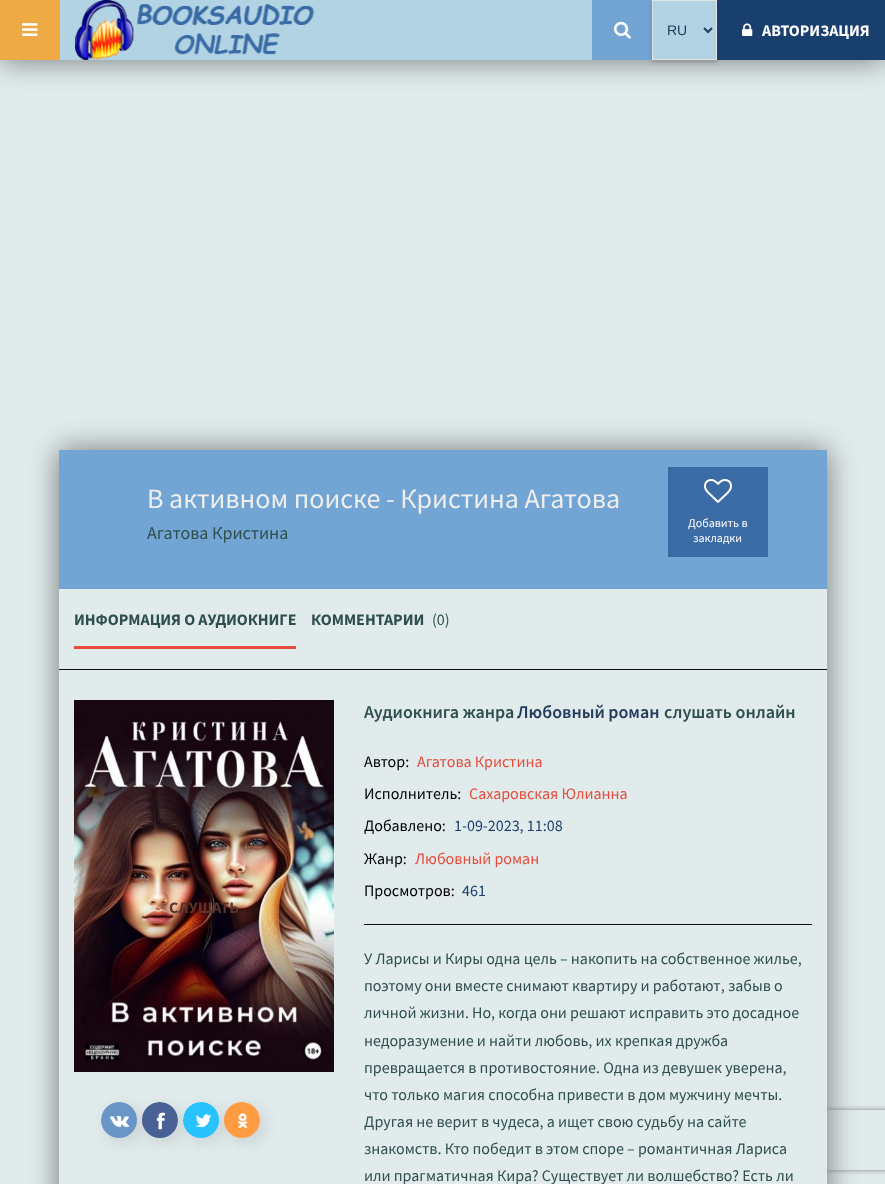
async function draw(canvas) {
  canvas.width = 885;
  canvas.height = 1184;
  const ctx = canvas.getContext('2d');
  ctx.miterLimit = 4;
  ctx.fontKerning = 'normal';
  function label(s, x, y, font, color) {
    ctx.font = font;
    ctx.fillStyle = color;
    ctx.fillText(s, x, y);
  }
  function rect(x, y, w, h, color) {
    ctx.fillStyle = color;
    ctx.fillRect(x, y, w, h);
  }
  async function image(src, x, y, w, h) {
    const img = new Image();
    img.src = src;
    await img.decode();
    ctx.drawImage(img, x, y, w, h);
  }
  let path;

  rect(0, 0, 885, 1184, '#e1ebec');
  ctx.fillStyle = '#00000080';
  ctx.filter = 'blur(15px)';
  ctx.beginPath();
  ctx.rect(0, 0, 885, 60);
  ctx.fill();
  ctx.filter = 'none';
  rect(60, 0, 656, 60, '#b1d3e3');
  rect(0, 0, 60, 60, '#ea4');
  await image('assets/img1.png', 22, 23, 16, 13);
  await image('assets/img2.png', 75, 0, 240, 60);
  rect(592, 0, 60, 60, '#72a5d3');
  await image('assets/img3.png', 614, 21, 17, 18);
  ctx.save();
  path = new Path2D('M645 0H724V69H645ZM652 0H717V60H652Z');
  ctx.clip(path, 'evenodd');
  ctx.fillStyle = '#4444444d';
  ctx.filter = 'blur(2px)';
  ctx.beginPath();
  ctx.rect(652, 2, 65, 60);
  ctx.fill();
  ctx.filter = 'none';
  ctx.restore();
  ctx.strokeStyle = '#e3e3e3';
  ctx.strokeRect(652.5, 0.5, 64, 59);
  path = new Path2D('M704 28L708 32L712 28');
  ctx.strokeStyle = '#243c5c';
  ctx.lineWidth = 2;
  ctx.stroke(path);
  label('RU', 667, 35, '14px Liberation Sans', '#243c5c');
  rect(717, 0, 168, 60, '#193f6e');
  await image('assets/img4.png', 742, 23, 11, 13);
  label('АВТОРИЗАЦИЯ', 762, 36, 'bold 16px Source Sans Pro', '#fff');
  ctx.fillStyle = '#00000080';
  ctx.filter = 'blur(15px)';
  ctx.beginPath();
  ctx.rect(59, 450, 768, 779);
  ctx.fill();
  ctx.filter = 'none';
  ctx.save();
  path = new Path2D('M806 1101H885V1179H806ZM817 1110H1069C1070 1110 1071 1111 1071 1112V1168C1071 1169 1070 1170 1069 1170H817C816 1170 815 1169 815 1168V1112C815 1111 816 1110 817 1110Z');
  ctx.clip(path, 'evenodd');
  ctx.fillStyle = '#808080';
  ctx.filter = 'blur(2.5px)';
  ctx.beginPath();
  ctx.roundRect(815, 1110, 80, 60, 2);
  ctx.fill();
  ctx.filter = 'none';
  ctx.restore();
  rect(59, 589, 768, 595, '#e1ebec');
  rect(59, 450, 768, 139, '#72a5d3');
  label('В активном поиске - Кристина Агатова', 147, 508, '28px Source Sans Pro', '#eee');
  label('Агатова Кристина', 147, 539, '18px Source Sans Pro', '#2f4f4f');
  rect(668, 467, 100, 90, '#3b6ba5');
  await image('assets/img5.png', 704, 479, 28, 24);
  label('Добавить в', 688, 527, '12px Source Sans Pro', '#fff');
  label('закладки', 693, 542, '12px Source Sans Pro', '#fff');
  rect(59, 669, 768, 1, '#111');
  rect(74, 646, 222, 3, '#e74c3c');
  label('ИНФОРМАЦИЯ О АУДИОКНИГЕ', 74, 625, 'bold 16px Source Sans Pro', '#2f4f4f');
  label('КОММЕНТАРИИ', 311, 625, 'bold 16px Source Sans Pro', '#2f4f4f');
  label('(0)', 432, 625, '16px Source Sans Pro', '#2f4f4f');
  await image('assets/img6.png', 74, 700, 260, 372);
  label('СЛУШАТЬ', 169, 913, 'bold 16px Source Sans Pro', '#5c332b');
  ctx.fillStyle = '#0000001a';
  ctx.filter = 'blur(8px)';
  ctx.beginPath();
  ctx.roundRect(106, 1107, 36, 36, 18);
  ctx.fill();
  ctx.filter = 'none';
  await image('assets/img7.png', 101, 1102, 36, 36);
  ctx.filter = 'blur(8px)';
  ctx.beginPath();
  ctx.roundRect(147, 1107, 36, 36, 18);
  ctx.fill();
  ctx.filter = 'none';
  await image('assets/img8.png', 142, 1102, 36, 36);
  ctx.filter = 'blur(8px)';
  ctx.beginPath();
  ctx.roundRect(188, 1107, 36, 36, 18);
  ctx.fill();
  ctx.filter = 'none';
  await image('assets/img9.png', 183, 1102, 36, 36);
  ctx.filter = 'blur(8px)';
  ctx.beginPath();
  ctx.roundRect(229, 1107, 36, 36, 18);
  ctx.fill();
  ctx.filter = 'none';
  await image('assets/img10.png', 224, 1102, 36, 36);
  label('Аудиокнига жанра', 364, 718, '600 18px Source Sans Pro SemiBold', '#2f4f4f');
  label('Любовный роман', 517, 718, '600 18px Source Sans Pro SemiBold', '#243c5c');
  label('слушать онлайн', 664, 718, '600 18px Source Sans Pro SemiBold', '#2f4f4f');
  label('Автор:', 364, 767, '16px Source Sans Pro', '#000');
  label('Агатова Кристина', 417, 767, '16px Source Sans Pro', '#e74c3c');
  label('Исполнитель:', 364, 799, '16px Source Sans Pro', '#000');
  label('Сахаровская Юлианна', 469, 799, '16px Source Sans Pro', '#e74c3c');
  label('Добавлено:', 364, 831, '16px Source Sans Pro', '#000');
  label('1-09-2023, 11:08', 454, 831, '16px Source Sans Pro', '#193f6e');
  label('Жанр:', 364, 864, '16px Source Sans Pro', '#000');
  label('Любовный роман', 415, 864, '16px Source Sans Pro', '#e74c3c');
  label('Просмотров:', 364, 896, '16px Source Sans Pro', '#000');
  label('461', 462, 896, '16px Source Sans Pro', '#193f6e');
  rect(364, 924, 448, 1, '#111');
  label('У Ларисы и Киры одна цель – накопить на собственное жилье,', 364, 964, '16px Source Sans Pro', '#2f4f4f');
  label('поэтому они вместе снимают квартиру и работают, забыв о', 364, 991, '16px Source Sans Pro', '#2f4f4f');
  label('личной жизни. Но, когда они решают исправить это досадное', 364, 1018, '16px Source Sans Pro', '#2f4f4f');
  label('недоразумение и найти любовь, их крепкая дружба', 364, 1046, '16px Source Sans Pro', '#2f4f4f');
  label('превращается в противостояние. Одна из девушек уверена,', 364, 1073, '16px Source Sans Pro', '#2f4f4f');
  label('что только магия способна привести в дом мужчину мечты.', 364, 1100, '16px Source Sans Pro', '#2f4f4f');
  label('Другая не верит в чудеса, а ищет свою судьбу на сайте', 364, 1127, '16px Source Sans Pro', '#2f4f4f');
  label('знакомств. Кто победит в этом споре – романтичная Лариса', 364, 1154, '16px Source Sans Pro', '#2f4f4f');
  label('или прагматичная Кира? Существует ли волшебство? Есть ли', 364, 1181, '16px Source Sans Pro', '#2f4f4f');
}

draw(document.querySelector('canvas'));
